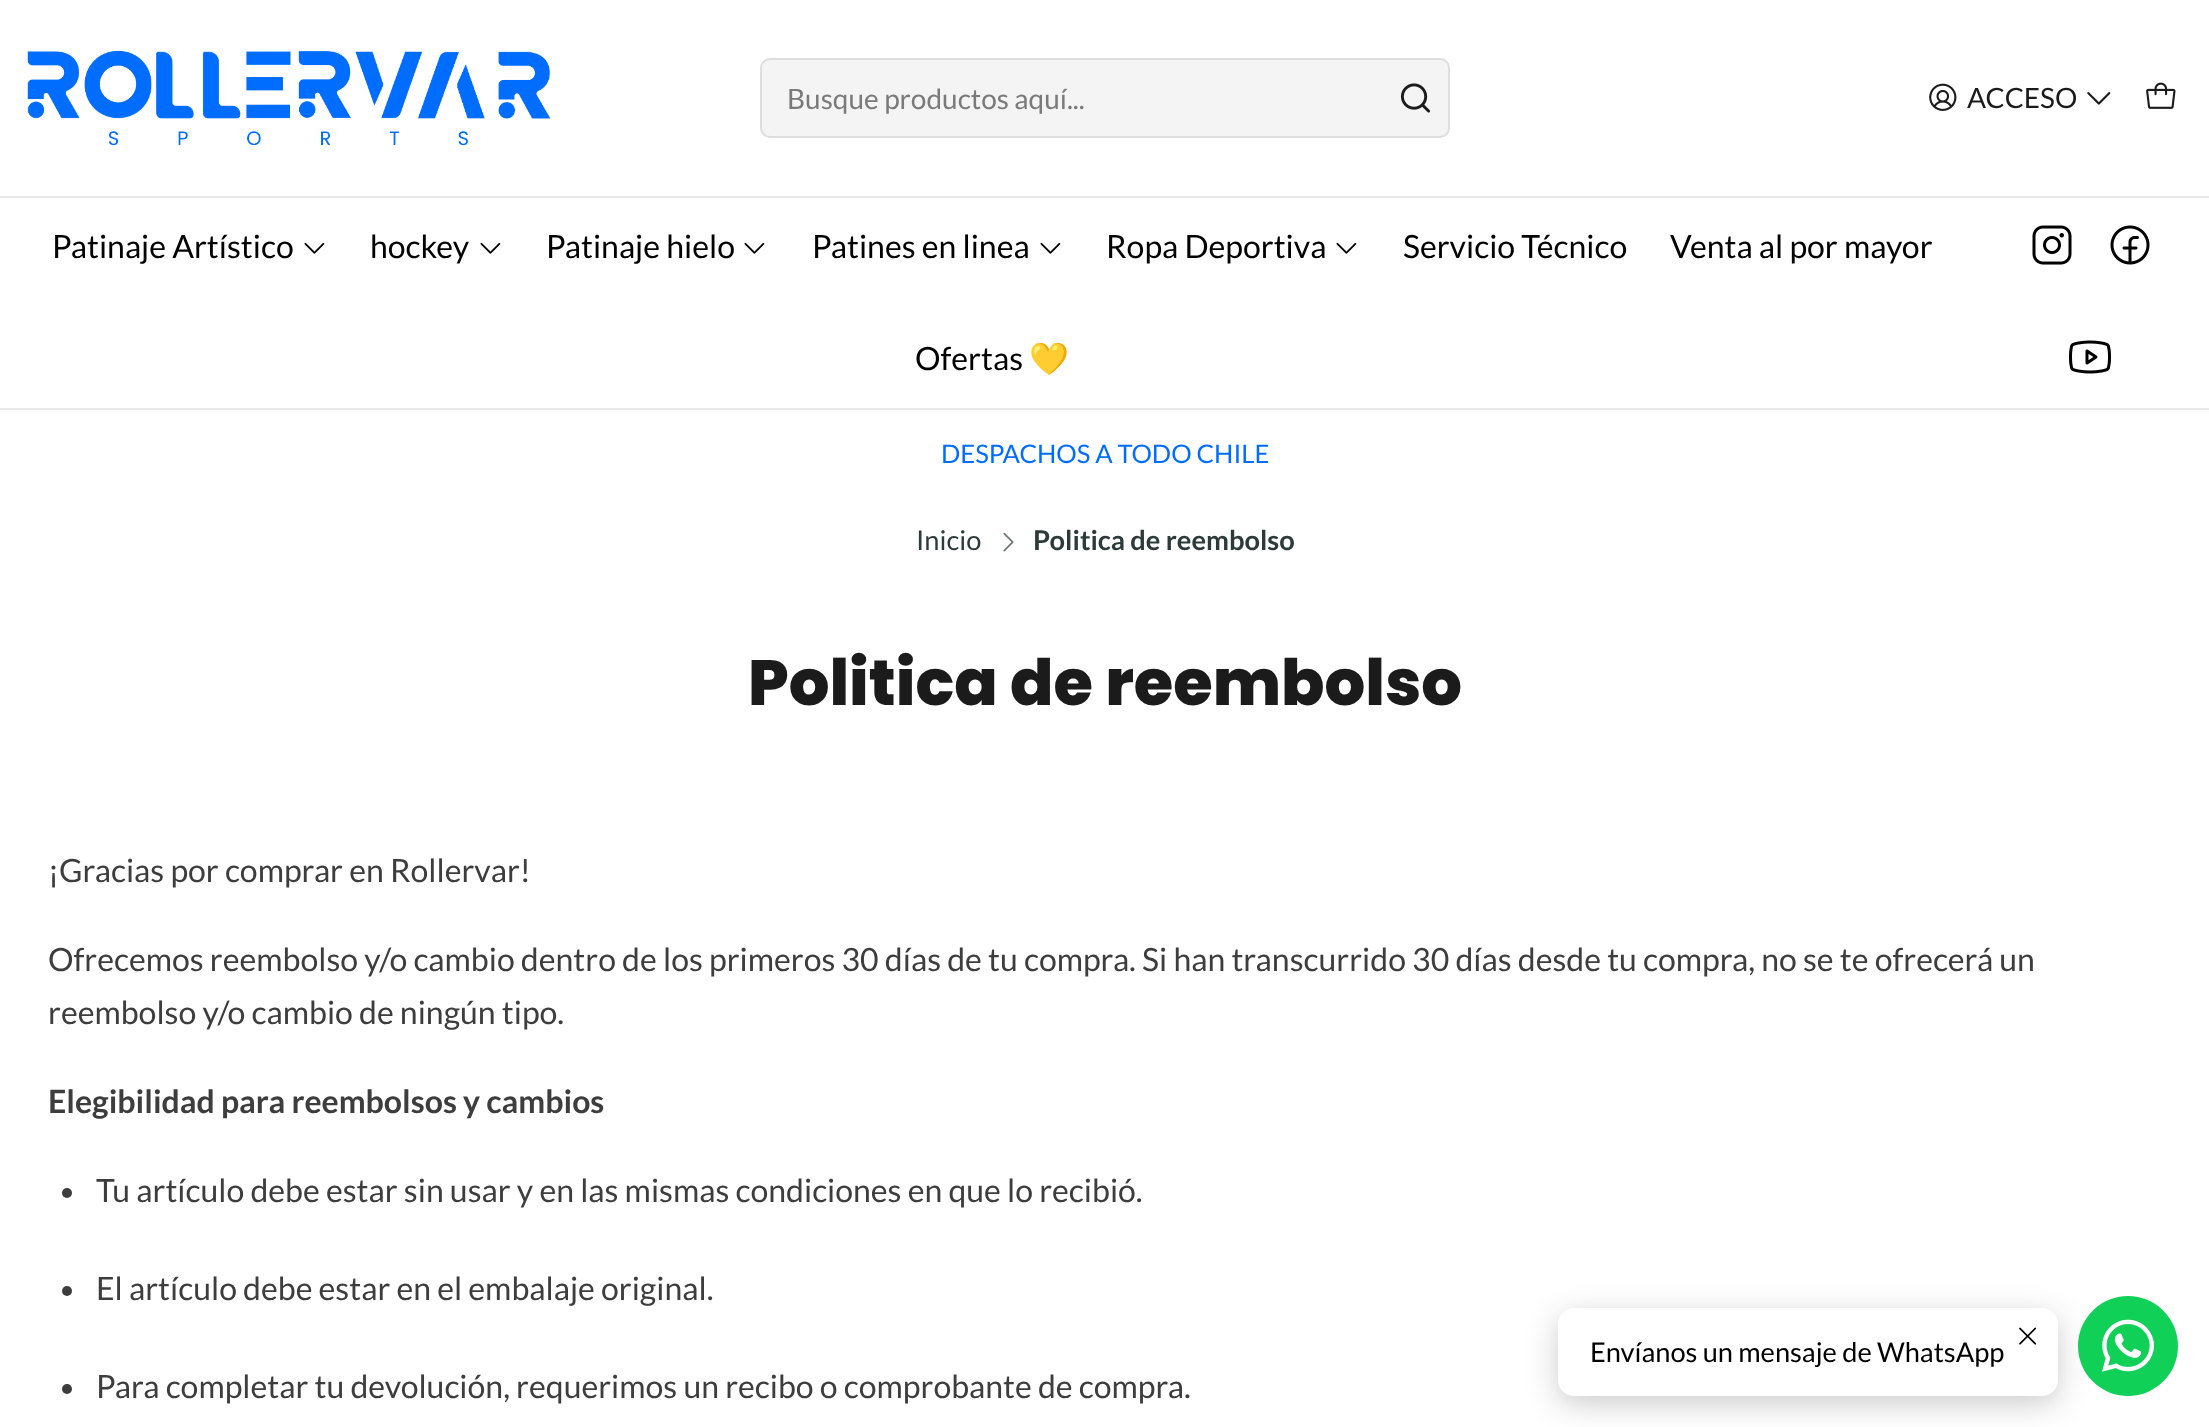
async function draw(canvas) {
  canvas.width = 2209;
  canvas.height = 1427;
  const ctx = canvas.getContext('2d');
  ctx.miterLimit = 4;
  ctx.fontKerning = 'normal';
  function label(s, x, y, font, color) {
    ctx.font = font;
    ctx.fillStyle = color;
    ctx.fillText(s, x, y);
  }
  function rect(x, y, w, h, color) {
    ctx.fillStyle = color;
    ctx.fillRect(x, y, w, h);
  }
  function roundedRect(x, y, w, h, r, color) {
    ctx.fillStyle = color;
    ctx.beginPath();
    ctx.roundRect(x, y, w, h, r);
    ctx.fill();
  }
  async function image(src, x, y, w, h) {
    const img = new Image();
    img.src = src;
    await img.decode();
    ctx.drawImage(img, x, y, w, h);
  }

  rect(0, 0, 2209, 1427, '#fff');
  rect(0, 408, 2209, 2, '#e8e8e8');
  await image('assets/img1.png', 27, 50, 524, 96);
  roundedRect(760, 58, 690, 80, 10, '#f4f4f4');
  ctx.beginPath();
  ctx.roundRect(761, 59, 688, 78, 9);
  ctx.strokeStyle = '#1b1b1b1a';
  ctx.lineWidth = 2;
  ctx.stroke();
  label('Busque productos aquí...', 787, 109, '28px Lato', '#7a7a7a');
  await image('assets/img2.png', 1400, 83, 31, 30);
  await image('assets/img3.png', 1929, 83, 28, 28);
  label('ACCESO', 1967, 108, '28px Lato', '#1b1b1b');
  await image('assets/img4.png', 2087, 92, 24, 13);
  await image('assets/img5.png', 2146, 82, 30, 27);
  rect(0, 196, 2209, 2, '#e6e6e6');
  label('Patinaje Artístico', 52, 258, '32px Lato', '#010101');
  await image('assets/img6.png', 304, 242, 21, 12);
  label('hockey', 370, 258, '32px Lato', '#010101');
  await image('assets/img6.png', 480, 242, 21, 12);
  label('Patinaje hielo', 546, 258, '32px Lato', '#010101');
  await image('assets/img6.png', 744, 242, 21, 12);
  label('Patines en linea', 812, 258, '32px Lato', '#010101');
  await image('assets/img6.png', 1040, 242, 21, 12);
  label('Ropa Deportiva', 1106, 258, '32px Lato', '#010101');
  await image('assets/img6.png', 1336, 242, 21, 12);
  label('Servicio Técnico', 1403, 258, '32px Lato', '#010101');
  label('Venta al por mayor', 1670, 258, '32px Lato', '#010101');
  label('Ofertas', 915, 370, '32px Lato', '#010101');
  label('💛', 1029, 370, '32px Noto Color Emoji', '#010101');
  await image('assets/img7.png', 2032, 225, 40, 40);
  await image('assets/img8.png', 2110, 225, 40, 40);
  await image('assets/img9.png', 2069, 340, 42, 34);
  label('DESPACHOS A TODO CHILE', 941, 463, '25.6px Lato', '#006dff');
  label('Inicio', 916, 550, '27.25px Lato', '#2d3a3a');
  await image('assets/img10.png', 1003, 532, 11, 20);
  label('Politica de reembolso', 1033, 550, 'bold 27.25px Lato', '#2d3a3a');
  label('Politica de reembolso', 748, 705, '800 64px Poppins', '#1b1b1b');
  label('¡Gracias por comprar en Rollervar!', 48, 882, '32px Lato', '#3d3d3d');
  label('Ofrecemos reembolso y/o cambio dentro de los primeros 30 días de tu compra. Si han transcurrido 30 días desde tu compra, no se te ofrecerá un', 48, 971, '32px Lato', '#3d3d3d');
  label('reembolso y/o cambio de ningún tipo.', 48, 1024, '32px Lato', '#3d3d3d');
  label('Elegibilidad para reembolsos y cambios', 48, 1113, 'bold 32px Lato', '#3d3d3d');
  ctx.beginPath();
  ctx.arc(67, 1193, 5, 0, 2 * Math.PI);
  ctx.fill();
  label('Tu artículo debe estar sin usar y en las mismas condiciones en que lo recibió.', 96, 1202, '32px Lato', '#3d3d3d');
  ctx.beginPath();
  ctx.arc(67, 1291, 5, 0, 2 * Math.PI);
  ctx.fill();
  label('El artículo debe estar en el embalaje original.', 96, 1300, '32px Lato', '#3d3d3d');
  ctx.beginPath();
  ctx.arc(67, 1389, 5, 0, 2 * Math.PI);
  ctx.fill();
  label('Para completar tu devolución, requerimos un recibo o comprobante de compra.', 96, 1398, '32px Lato', '#3d3d3d');
  ctx.fillStyle = '#00000033';
  ctx.filter = 'blur(15px)';
  ctx.beginPath();
  ctx.roundRect(1558, 1316, 500, 88, 16);
  ctx.fill();
  ctx.filter = 'none';
  roundedRect(1558, 1308, 500, 88, 16, '#fff');
  await image('assets/img11.png', 2019, 1327, 18, 18);
  label('Envíanos un mensaje de WhatsApp', 1590, 1362, '27.25px Lato', '#010101');
  ctx.fillStyle = '#11d058';
  ctx.beginPath();
  ctx.arc(2128, 1346, 50, 0, 2 * Math.PI);
  ctx.fill();
  await image('assets/img12.png', 2102, 1319, 52, 53);
}

draw(document.querySelector('canvas'));
